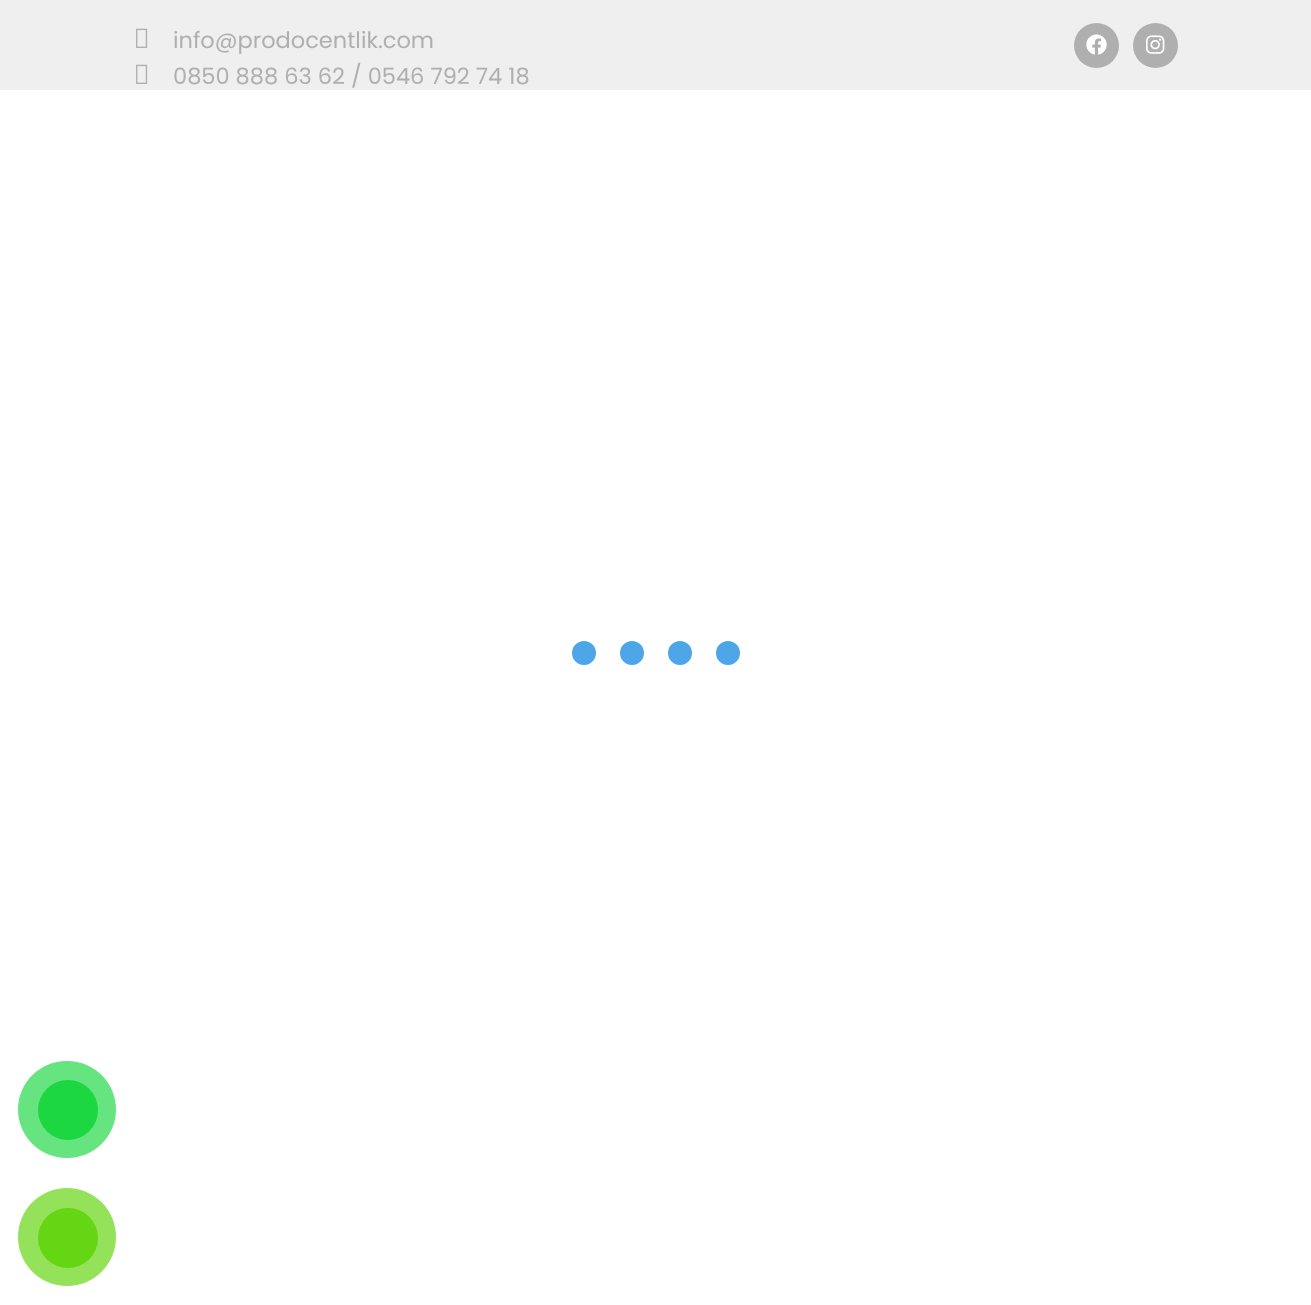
async function draw(canvas) {
  canvas.width = 1311;
  canvas.height = 1305;
  const ctx = canvas.getContext('2d');
  ctx.miterLimit = 4;
  ctx.fontKerning = 'normal';
  function label(s, x, y, font, color) {
    ctx.font = font;
    ctx.fillStyle = color;
    ctx.fillText(s, x, y);
  }
  function rect(x, y, w, h, color) {
    ctx.fillStyle = color;
    ctx.fillRect(x, y, w, h);
  }
  function roundedRect(x, y, w, h, r, color) {
    ctx.fillStyle = color;
    ctx.beginPath();
    ctx.roundRect(x, y, w, h, r);
    ctx.fill();
  }
  async function image(src, x, y, w, h) {
    const img = new Image();
    img.src = src;
    await img.decode();
    ctx.drawImage(img, x, y, w, h);
  }

  rect(0, 0, 1311, 1305, '#fff');
  rect(0, 0, 1311, 90, '#efefef');
  await image('assets/img1.png', 136, 28, 12, 20);
  label('info@prodocentlik.com', 173, 48, '22.5px Poppins', '#afafaf');
  await image('assets/img1.png', 136, 64, 12, 20);
  label('0850 888 63 62 / 0546 792 74 18', 173, 84, '22.5px Poppins', '#afafaf');
  ctx.beginPath();
  ctx.arc(1096.5, 45.5, 22.5, 0, 2 * Math.PI);
  ctx.fill();
  await image('assets/img2.png', 1086, 34, 21, 21);
  ctx.beginPath();
  ctx.arc(1155.5, 45.5, 22.5, 0, 2 * Math.PI);
  ctx.fill();
  await image('assets/img3.png', 1146, 35, 19, 19);
  ctx.fillStyle = '#4da6e7';
  ctx.beginPath();
  ctx.arc(584, 653, 12, 0, 2 * Math.PI);
  ctx.fill();
  ctx.beginPath();
  ctx.arc(632, 653, 12, 0, 2 * Math.PI);
  ctx.fill();
  ctx.beginPath();
  ctx.arc(680, 653, 12, 0, 2 * Math.PI);
  ctx.fill();
  ctx.beginPath();
  ctx.arc(728, 653, 12, 0, 2 * Math.PI);
  ctx.fill();
  roundedRect(18, 1061, 98, 97, 48.5, '#65e47f');
  ctx.fillStyle = '#1cd741';
  ctx.beginPath();
  ctx.arc(68, 1110, 30, 0, 2 * Math.PI);
  ctx.fill();
  ctx.fillStyle = '#93e25a';
  ctx.beginPath();
  ctx.arc(67, 1237, 49, 0, 2 * Math.PI);
  ctx.fill();
  ctx.fillStyle = '#64d613';
  ctx.beginPath();
  ctx.arc(68, 1238, 30, 0, 2 * Math.PI);
  ctx.fill();
}

draw(document.querySelector('canvas'));
